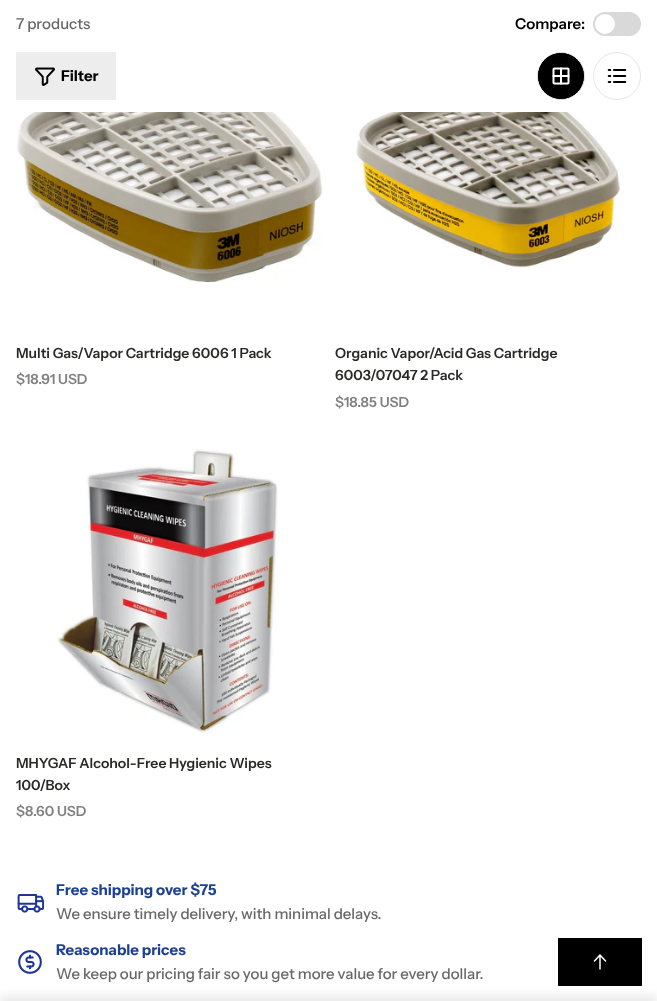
async function draw(canvas) {
  canvas.width = 657;
  canvas.height = 1001;
  const ctx = canvas.getContext('2d');
  ctx.miterLimit = 4;
  ctx.fontKerning = 'normal';
  function label(s, x, y, font, color) {
    ctx.font = font;
    ctx.fillStyle = color;
    ctx.fillText(s, x, y);
  }
  function rect(x, y, w, h, color) {
    ctx.fillStyle = color;
    ctx.fillRect(x, y, w, h);
  }
  function roundedRect(x, y, w, h, r, color) {
    ctx.fillStyle = color;
    ctx.beginPath();
    ctx.roundRect(x, y, w, h, r);
    ctx.fill();
  }
  async function image(src, x, y, w, h) {
    const img = new Image();
    img.src = src;
    await img.decode();
    ctx.drawImage(img, x, y, w, h);
  }
  let path;

  rect(0, 0, 657, 1001, '#fff');
  label('7 products', 16, 29, '500 15px Instrument Sans', '#666');
  rect(16, 52, 100, 48, '#ededed');
  await image('assets/img1.png', 35, 67, 20, 19);
  label('Filter', 61, 81, 'bold 15px Instrument Sans', '#000');
  label('Compare:', 515, 29, '600 15px Instrument Sans', '#000');
  roundedRect(593, 12, 48, 24, 12, '#d9d9d9');
  ctx.fillStyle = '#fff';
  ctx.beginPath();
  ctx.arc(605, 24, 10, 0, 2 * Math.PI);
  ctx.fill();
  ctx.fillStyle = '#000';
  ctx.beginPath();
  ctx.arc(561, 76, 23.5, 0, 2 * Math.PI);
  ctx.fill();
  ctx.strokeStyle = '#e5e5e5';
  ctx.stroke();
  ctx.save();
  ctx.beginPath();
  ctx.roundRect(538, 53, 46, 46, 23);
  ctx.clip();
  roundedRect(537, 52, 47, 48, 23.5, '#000');
  ctx.restore();
  await image('assets/img2.png', 552, 67, 18, 18);
  ctx.beginPath();
  ctx.arc(617, 76, 23.5, 0, 2 * Math.PI);
  ctx.stroke();
  await image('assets/img3.png', 607, 69, 20, 14);
  await image('assets/img4.png', 17, 112, 306, 170);
  label('Multi Gas/Vapor Cartridge 6006 1 Pack', 16, 358, '600 14px Instrument Sans', '#292928');
  label('$18.91 USD', 16, 384, '600 14px Instrument Sans', '#808080');
  await image('assets/img5.png', 356, 112, 265, 156);
  label('Organic Vapor/Acid Gas Cartridge', 335, 358, '600 14px Instrument Sans', '#292928');
  label('6003/07047 2 Pack', 335, 380, '600 14px Instrument Sans', '#292928');
  label('$18.85 USD', 335, 407, '600 14px Instrument Sans', '#808080');
  await image('assets/img6.png', 56, 449, 223, 285);
  label('MHYGAF Alcohol-Free Hygienic Wipes', 16, 768, '600 14px Instrument Sans', '#292928');
  label('100/Box', 16, 790, '600 14px Instrument Sans', '#292928');
  label('$8.60 USD', 16, 816, '600 14px Instrument Sans', '#808080');
  ctx.fillStyle = '#00000014';
  ctx.filter = 'blur(5px)';
  ctx.beginPath();
  ctx.rect(0, 995, 657, 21);
  ctx.fill();
  ctx.filter = 'none';
  await image('assets/img7.png', 17, 894, 27, 19);
  label('Free shipping over $75', 56, 895, 'bold 15px Instrument Sans', '#1e4092');
  label('We ensure timely delivery, with minimal delays.', 56, 919, '500 15px Instrument Sans', '#666');
  await image('assets/img8.png', 18, 950, 24, 24);
  label('Reasonable prices', 56, 955, 'bold 15px Instrument Sans', '#1e4092');
  label('We keep our pricing fair so you get more value for every dollar.', 56, 979, '500 15px Instrument Sans', '#666');
  rect(558, 938, 84, 48, '#000');
  path = new Path2D('M600 969V955M594.5 961L600 955L605.5 961');
  ctx.strokeStyle = '#fff';
  ctx.lineWidth = 1.5;
  ctx.lineCap = 'round';
  ctx.lineJoin = 'round';
  ctx.stroke(path);
}

draw(document.querySelector('canvas'));
